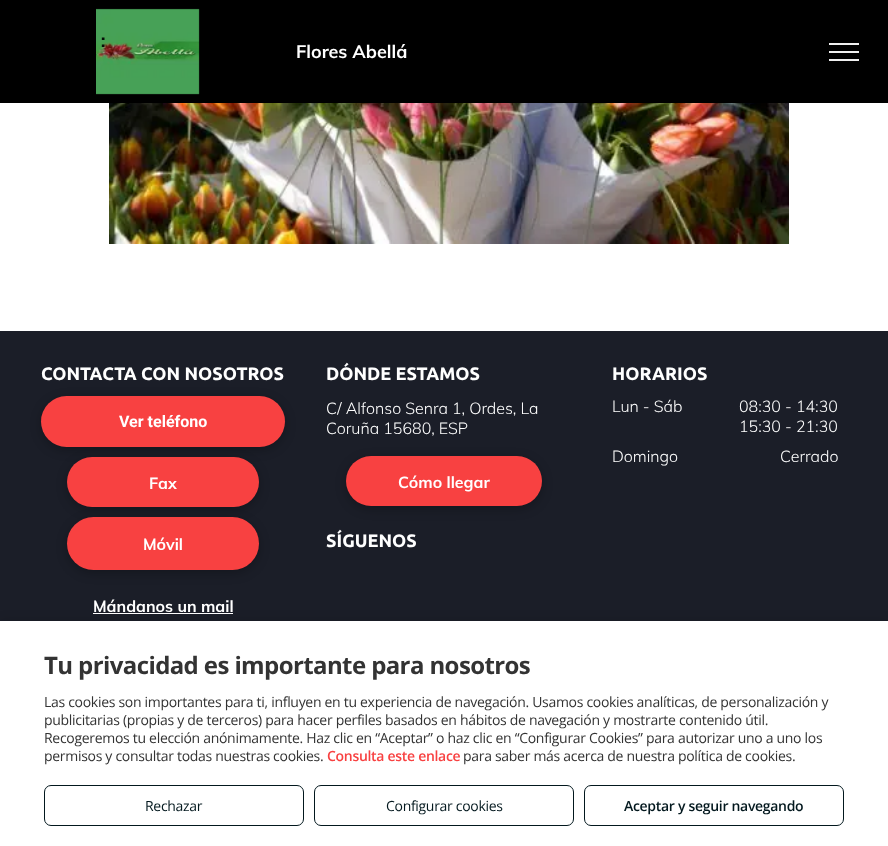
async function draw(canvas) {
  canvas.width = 888;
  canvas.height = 846;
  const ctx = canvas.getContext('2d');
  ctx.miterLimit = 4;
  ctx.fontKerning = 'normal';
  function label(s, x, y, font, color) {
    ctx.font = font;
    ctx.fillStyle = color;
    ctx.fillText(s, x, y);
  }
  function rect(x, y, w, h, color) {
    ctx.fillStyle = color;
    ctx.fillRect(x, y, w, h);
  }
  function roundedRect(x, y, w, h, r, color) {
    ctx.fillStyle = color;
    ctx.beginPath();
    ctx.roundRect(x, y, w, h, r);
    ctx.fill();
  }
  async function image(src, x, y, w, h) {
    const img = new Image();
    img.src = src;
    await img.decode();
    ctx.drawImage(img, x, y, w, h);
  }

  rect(0, 0, 888, 846, '#fff');
  rect(0, 0, 888, 103, '#000');
  await image('assets/img1.png', 96, 8, 104, 87);
  label(':', 100, 47, 'bold 19px Liberation Sans', '#060d07');
  label('Flores Abellá', 296, 58, 'bold 18px Muli', '#fff');
  rect(829, 43, 30, 2, '#f0f0f0');
  rect(829, 51, 30, 2, '#f0f0f0');
  rect(829, 59, 30, 2, '#f0f0f0');
  await image('assets/img2.png', 109, 103, 680, 141);
  rect(0, 331, 888, 290, '#1b1e28');
  label('CONTACTA CON NOSOTROS', 41, 380, 'bold 18px Ubuntu', '#fff');
  ctx.fillStyle = '#00000040';
  ctx.filter = 'blur(5.5px)';
  ctx.beginPath();
  ctx.roundRect(41, 399, 244, 51, 25.5);
  ctx.fill();
  ctx.filter = 'none';
  roundedRect(41, 396, 244, 51, 25.5, '#f84141');
  label('Ver teléfono', 119, 427, 'bold 16px Roboto', '#fff');
  ctx.fillStyle = '#00000040';
  ctx.filter = 'blur(5.5px)';
  ctx.beginPath();
  ctx.roundRect(67, 460, 192, 50, 25);
  ctx.fill();
  ctx.filter = 'none';
  roundedRect(67, 457, 192, 50, 25, '#f84141');
  label('Fax', 149, 489, 'bold 16px Muli', '#fff');
  ctx.fillStyle = '#00000040';
  ctx.filter = 'blur(5.5px)';
  ctx.beginPath();
  ctx.roundRect(67, 520, 192, 53, 26.5);
  ctx.fill();
  ctx.filter = 'none';
  roundedRect(67, 517, 192, 53, 26.5, '#f84141');
  label('Móvil', 143, 550, 'bold 16px Muli', '#fff');
  label('Mándanos un mail', 93, 612, 'bold 16px Muli', '#fff');
  rect(93, 613, 140, 1, '#fff');
  label('DÓNDE ESTAMOS', 326, 380, 'bold 18px Ubuntu', '#fff');
  label('C/ Alfonso Senra 1, Ordes, La', 326, 414, '300 16px Muli', '#fff');
  label('Coruña 15680, ESP', 326, 434, '300 16px Muli', '#fff');
  ctx.fillStyle = '#00000040';
  ctx.filter = 'blur(5.5px)';
  ctx.beginPath();
  ctx.roundRect(346, 459, 196, 50, 25);
  ctx.fill();
  ctx.filter = 'none';
  roundedRect(346, 456, 196, 50, 25, '#f84141');
  label('Cómo llegar', 398, 488, 'bold 16px Muli', '#fff');
  label('SÍGUENOS', 326, 547, 'bold 18px Ubuntu', '#fff');
  label('HORARIOS', 612, 380, 'bold 18px Ubuntu', '#fff');
  label('Lun - Sáb', 612, 412, '300 16px Muli', '#fff');
  label('08:30 - 14:30', 739, 412, '300 16px Muli', '#fff');
  label('15:30 - 21:30', 739, 432, '300 16px Muli', '#fff');
  label('Domingo', 612, 462, '300 16px Muli', '#fff');
  label('Cerrado', 780, 462, '300 16px Muli', '#fff');
  ctx.fillStyle = '#0000001a';
  ctx.filter = 'blur(5px)';
  ctx.beginPath();
  ctx.rect(0, 619, 888, 225);
  ctx.fill();
  ctx.filter = 'none';
  rect(0, 621, 888, 225, '#fff');
  ctx.letterSpacing = '-0.6px';
  label('Tu privacidad es importante para nosotros', 44, 674, 'bold 24px Open Sans', '#333');
  ctx.letterSpacing = '-0.3px';
  label('Las cookies son importantes para ti, influyen en tu experiencia de navegación. Usamos cookies analíticas, de personalización y', 44, 707, '14px Open Sans', '#333');
  label('publicitarias (propias y de terceros) para hacer perfiles basados en hábitos de navegación y mostrarte contenido útil.', 44, 725, '14px Open Sans', '#333');
  label('Recogeremos tu elección anónimamente. Haz clic en “Aceptar” o haz clic en “Configurar Cookies” para autorizar uno a uno los', 44, 743, '14px Open Sans', '#333');
  label('permisos y consultar todas nuestras cookies.', 44, 761, '14px Open Sans', '#333');
  label('Consulta este enlace', 327, 761, '600 14px Open Sans', '#f84141');
  label('para saber más acerca de nuestra política de cookies.', 463, 761, '14px Open Sans', '#333');
  ctx.beginPath();
  ctx.roundRect(44.5, 785.5, 259, 40, 6.5);
  ctx.strokeStyle = '#03181e';
  ctx.stroke();
  label('Rechazar', 145, 811, '14px Open Sans', '#03181e');
  ctx.beginPath();
  ctx.roundRect(314.5, 785.5, 259, 40, 6.5);
  ctx.stroke();
  label('Configurar cookies', 386, 811, '14px Open Sans', '#03181e');
  ctx.beginPath();
  ctx.roundRect(584.5, 785.5, 259, 40, 6.5);
  ctx.stroke();
  label('Aceptar y seguir navegando', 624, 811, '600 14px Open Sans', '#03181e');
}

draw(document.querySelector('canvas'));
